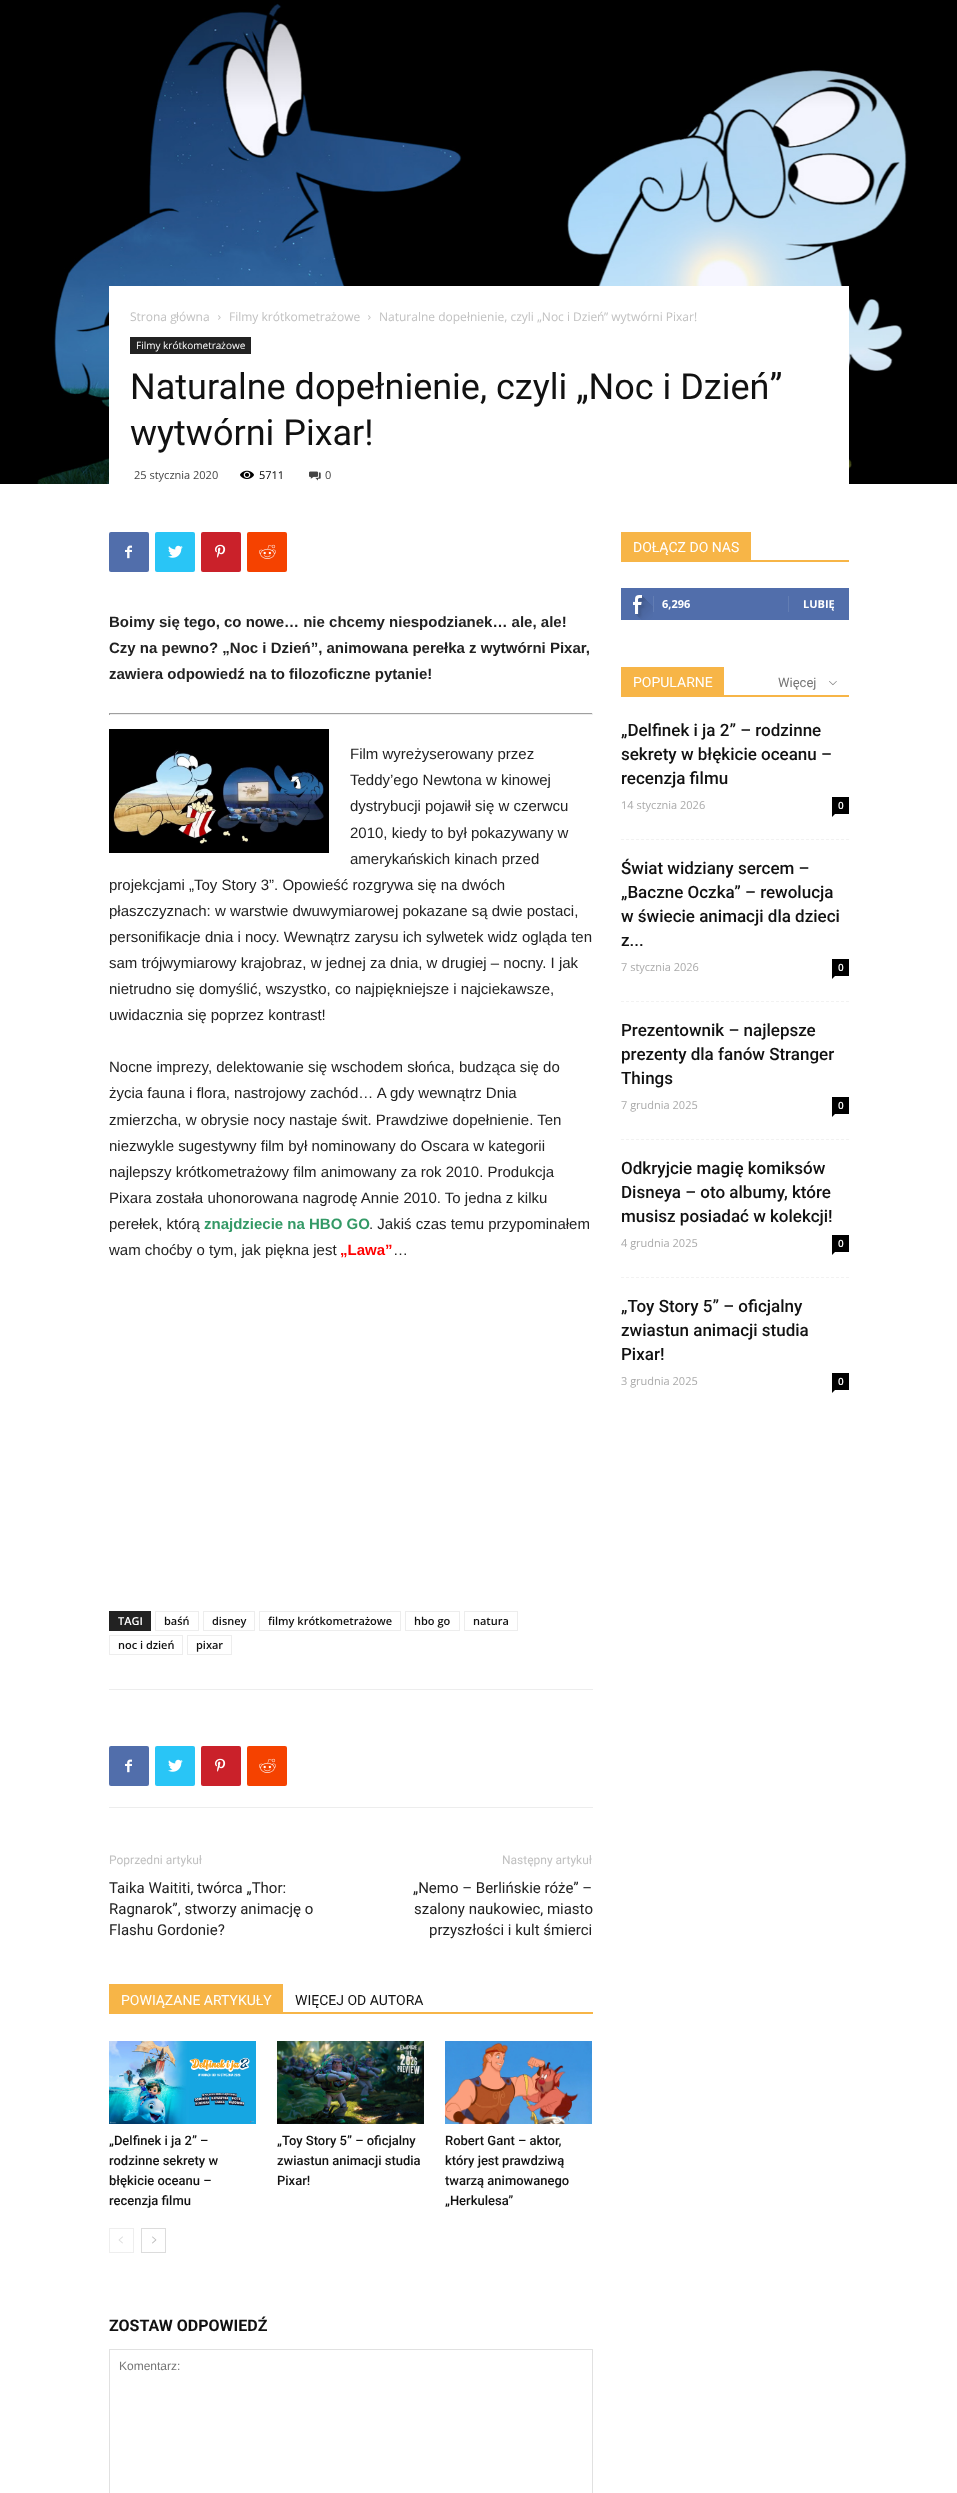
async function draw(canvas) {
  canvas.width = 957;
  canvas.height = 2493;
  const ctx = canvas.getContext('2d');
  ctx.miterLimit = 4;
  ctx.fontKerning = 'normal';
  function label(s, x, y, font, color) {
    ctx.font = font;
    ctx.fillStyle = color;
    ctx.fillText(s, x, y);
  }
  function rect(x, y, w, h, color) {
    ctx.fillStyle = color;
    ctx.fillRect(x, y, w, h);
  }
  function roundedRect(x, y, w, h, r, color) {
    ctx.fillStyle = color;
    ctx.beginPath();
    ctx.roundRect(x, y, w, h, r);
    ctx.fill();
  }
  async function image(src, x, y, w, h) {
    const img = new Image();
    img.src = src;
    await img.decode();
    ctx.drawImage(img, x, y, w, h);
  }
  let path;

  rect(0, 0, 957, 2493, '#fff');
  await image('assets/img1.png', 0, 0, 957, 484);
  rect(109, 286, 740, 198, '#fff');
  label('ł', 176, 321, '12px "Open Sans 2"', '#c1c1c1');
  label('ówna', 179, 321, '12px Open Sans', '#c1c1c1');
  label('Filmy krótkometra', 229, 321, '12px Open Sans', '#c1c1c1');
  label('Naturalne dope nienie, czyli „Noc i Dzie', 379, 321, '12px Open Sans', '#c1c1c1');
  label('Strona g', 130, 321, '12px Open Sans', '#c1c1c1');
  await image('assets/img2.png', 218, 315, 3, 5);
  label('ż', 331, 321, '12px "Open Sans 2"', '#c1c1c1');
  label('owe', 337, 321, '12px Open Sans', '#c1c1c1');
  await image('assets/img2.png', 368, 315, 3, 5);
  label('ł', 467, 321, '12px "Open Sans 2"', '#c1c1c1');
  label('ń', 597, 321, '12px "Open Sans 2"', '#c1c1c1');
  label('” wytwórni Pixar!', 604, 321, '12px Open Sans', '#c1c1c1');
  rect(130, 337, 121, 17, '#222');
  label('Filmy krótkometra', 136, 349, '10px Open Sans', '#fff');
  label('ż', 221, 349, '10px "Open Sans 2"', '#fff');
  label('owe', 226, 349, '10px Open Sans', '#fff');
  label('Naturalne dopełnienie, czyli „Noc i Dzień”', 130, 399, '36px Roboto', '#111');
  label('wytwórni Pixar!', 130, 445, '36px Roboto', '#111');
  label('25 stycznia 2020', 134, 479, '11px Open Sans', '#444');
  await image('assets/img3.png', 240, 470, 14, 9);
  label('5711', 259, 479, '11px Open Sans', '#000');
  await image('assets/img4.png', 309, 471, 12, 10);
  label('0', 325, 479, '11px Open Sans', '#444');
  roundedRect(109, 532, 40, 40, 2, '#516eab');
  await image('assets/img5.png', 125, 545, 7, 14);
  roundedRect(155, 532, 40, 40, 2, '#29c5f6');
  await image('assets/img6.png', 168, 545, 15, 13);
  roundedRect(201, 532, 40, 40, 2, '#ca212a');
  await image('assets/img7.png', 215, 544, 11, 14);
  roundedRect(247, 532, 40, 40, 2, '#f54200');
  await image('assets/img8.png', 259, 544, 17, 15);
  label('Boimy się tego, co nowe… nie chcemy niespodzianek… ale, ale!', 109, 627, 'bold 15px Liberation Sans', '#222');
  label('Czy na pewno? „Noc i Dzień”, animowana perełka z wytwórni Pixar,', 109, 653, 'bold 15px Liberation Sans', '#222');
  label('zawiera odpowiedź na to filozoficzne pytanie!', 109, 679, 'bold 15px Liberation Sans', '#222');
  rect(109, 713, 484, 1, '#9f9f9f');
  rect(592, 713, 1, 2, '#eee');
  rect(109, 714, 484, 1, '#eee');
  rect(109, 713, 1, 2, '#9f9f9f');
  await image('assets/img9.png', 109, 729, 220, 124);
  label('Film wyreżyserowany przez', 350, 759, '15px Liberation Sans', '#222');
  label('Teddy’ego Newtona w kinowej', 350, 785, '15px Liberation Sans', '#222');
  label('dystrybucji pojawił się w czerwcu', 350, 811, '15px Liberation Sans', '#222');
  label('2010, kiedy to był pokazywany w', 350, 838, '15px Liberation Sans', '#222');
  label('amerykańskich kinach przed', 350, 864, '15px Liberation Sans', '#222');
  label('projekcjami „Toy Story 3”. Opowieść rozgrywa się na dwóch', 109, 890, '15px Liberation Sans', '#222');
  label('płaszczyznach: w warstwie dwuwymiarowej pokazane są dwie postaci,', 109, 916, '15px Liberation Sans', '#222');
  label('personifikacje dnia i nocy. Wewnątrz zarysu ich sylwetek widz ogląda ten', 109, 942, '15px Liberation Sans', '#222');
  label('sam trójwymiarowy krajobraz, w jednej za dnia, w drugiej – nocny. I jak', 109, 968, '15px Liberation Sans', '#222');
  label('nietrudno się domyślić, wszystko, co najpiękniejsze i najciekawsze,', 109, 994, '15px Liberation Sans', '#222');
  label('uwidacznia się poprzez kontrast!', 109, 1020, '15px Liberation Sans', '#222');
  label('Nocne imprezy, delektowanie się wschodem słońca, budząca się do', 109, 1072, '15px Liberation Sans', '#222');
  label('życia fauna i flora, nastrojowy zachód… A gdy wewnątrz Dnia', 109, 1098, '15px Liberation Sans', '#222');
  label('zmierzcha, w obrysie nocy nastaje świt. Prawdziwe dopełnienie. Ten', 109, 1125, '15px Liberation Sans', '#222');
  label('niezwykle sugestywny film był nominowany do Oscara w kategorii', 109, 1151, '15px Liberation Sans', '#222');
  label('najlepszy krótkometrażowy film animowany za rok 2010. Produkcja', 109, 1177, '15px Liberation Sans', '#222');
  label('Pixara została uhonorowana nagrodę Annie 2010. To jedna z kilku', 109, 1203, '15px Liberation Sans', '#222');
  label('perełek, którą', 109, 1229, '15px Liberation Sans', '#222');
  label('znajdziecie na HBO GO', 204, 1229, 'bold 15px Liberation Sans', '#396');
  label('. Jakiś czas temu przypominałem', 369, 1229, '15px Liberation Sans', '#222');
  label('wam choćby o tym, jak piękna jest', 109, 1255, '15px Liberation Sans', '#222');
  label('„Lawa”', 340, 1255, 'bold 15px Liberation Sans', '#f00');
  label('…', 393, 1255, '15px Liberation Sans', '#222');
  rect(109, 1611, 42, 20, '#222');
  label('TAGI', 118, 1625, '600 11px Open Sans', '#fff');
  ctx.strokeStyle = '#ededed';
  ctx.strokeRect(155.5, 1611.5, 43, 19);
  label('baśń', 164, 1625, '600 11px Open Sans', '#111');
  ctx.strokeRect(203.5, 1611.5, 51, 19);
  label('disney', 212, 1625, '600 11px Open Sans', '#111');
  ctx.strokeRect(259.5, 1611.5, 141, 19);
  label('filmy krótkometrażowe', 268, 1625, '600 11px Open Sans', '#111');
  ctx.strokeRect(405.5, 1611.5, 54, 19);
  label('hbo go', 414, 1625, '600 11px Open Sans', '#111');
  ctx.strokeRect(464.5, 1611.5, 53, 19);
  label('natura', 473, 1625, '600 11px Open Sans', '#111');
  ctx.strokeRect(109.5, 1635.5, 73, 19);
  label('noc i dzień', 118, 1649, '600 11px Open Sans', '#111');
  ctx.strokeRect(187.5, 1635.5, 44, 19);
  label('pixar', 196, 1649, '600 11px Open Sans', '#111');
  rect(109, 1689, 484, 1, '#ededed');
  rect(109, 1807, 484, 1, '#ededed');
  roundedRect(109, 1746, 40, 40, 2, '#516eab');
  await image('assets/img5.png', 125, 1759, 7, 14);
  roundedRect(155, 1746, 40, 40, 2, '#29c5f6');
  await image('assets/img6.png', 168, 1759, 15, 13);
  roundedRect(201, 1746, 40, 40, 2, '#ca212a');
  await image('assets/img7.png', 215, 1758, 11, 14);
  roundedRect(247, 1746, 40, 40, 2, '#f54200');
  await image('assets/img8.png', 259, 1758, 17, 15);
  label('Poprzedni artykuł', 109, 1864, '12px Roboto', '#c1c1c1');
  label('Taika Waititi, twórca „Thor:', 109, 1893, '15px Roboto', '#222');
  label('Ragnarok”, stworzy animację o', 109, 1914, '15px Roboto', '#222');
  label('Flashu Gordonie?', 109, 1935, '15px Roboto', '#222');
  label('Następny artykuł', 502, 1864, '12px Roboto', '#c1c1c1');
  label('„Nemo – Berlińskie róże” –', 413, 1893, '15px Roboto', '#222');
  label('szalony naukowiec, miasto', 414, 1914, '15px Roboto', '#222');
  label('przyszłości i kult śmierci', 429, 1935, '15px Roboto', '#222');
  rect(109, 2012, 484, 2, '#f7b547');
  rect(109, 1984, 174, 28, '#f7b547');
  label('POWIĄZANE ARTYKUŁY', 121, 2005, '14px Roboto', '#fff');
  label('WIĘCEJ OD AUTORA', 295, 2005, '14px Roboto', '#111');
  await image('assets/img10.png', 109, 2041, 147, 83);
  label('„Delfinek i ja 2” –', 109, 2145, '500 13px Roboto', '#111');
  label('rodzinne sekrety w', 109, 2165, '500 13px Roboto', '#111');
  label('błękicie oceanu –', 109, 2185, '500 13px Roboto', '#111');
  label('recenzja filmu', 109, 2205, '500 13px Roboto', '#111');
  await image('assets/img11.png', 277, 2041, 147, 83);
  label('„Toy Story 5” – oficjalny', 277, 2145, '500 13px Roboto', '#111');
  label('zwiastun animacji studia', 277, 2165, '500 13px Roboto', '#111');
  label('Pixar!', 277, 2185, '500 13px Roboto', '#111');
  await image('assets/img12.png', 445, 2041, 147, 83);
  label('Robert Gant – aktor,', 445, 2145, '500 13px Roboto', '#111');
  label('który jest prawdziwą', 445, 2165, '500 13px Roboto', '#111');
  label('twarzą animowanego', 445, 2185, '500 13px Roboto', '#111');
  label('„Herkulesa”', 445, 2205, '500 13px Roboto', '#111');
  ctx.strokeStyle = '#eee';
  ctx.strokeRect(109.5, 2228.5, 24, 24);
  await image('assets/img13.png', 118, 2236, 5, 8);
  ctx.strokeStyle = '#dcdcdc';
  ctx.strokeRect(141.5, 2228.5, 24, 24);
  await image('assets/img14.png', 152, 2236, 5, 8);
  label('ZOSTAW ODPOWIEDŹ', 109, 2331, 'bold 16px Roboto', '#111');
  ctx.strokeStyle = '#e1e1e1';
  ctx.strokeRect(109.5, 2349.5, 483, 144);
  label('Komentarz:', 119, 2370, '12px Liberation Sans', '#757575');
  rect(621, 560, 228, 2, '#f7b547');
  rect(621, 532, 130, 28, '#f7b547');
  label('DOŁĄCZ DO NAS', 633, 552, '14px Roboto', '#fff');
  rect(621, 588, 228, 32, '#516eab');
  await image('assets/img15.png', 633, 595, 20, 25);
  rect(653, 596, 1, 16, '#627db3');
  label('6,296', 662, 608, 'bold 11px Open Sans', '#fff');
  rect(788, 596, 1, 16, '#627db3');
  label('LUBIĘ', 803, 608, 'bold 11px Open Sans', '#fff');
  rect(621, 695, 228, 2, '#f7b547');
  rect(621, 667, 103, 28, '#f7b547');
  label('POPULARNE', 633, 687, '14px Roboto', '#fff');
  label('Więcej', 778, 687, '13px Roboto', '#757575');
  await image('assets/img16.png', 829, 681, 8, 5);
  path = new Path2D('M621 839.5H849');
  ctx.strokeStyle = '#f2f2f2';
  ctx.setLineDash([3, 2]);
  ctx.stroke(path);
  label('„Delfinek i ja 2” – rodzinne', 621, 736, '500 17px Roboto', '#111');
  label('sekrety w błękicie oceanu –', 621, 760, '500 17px Roboto', '#111');
  label('recenzja filmu', 621, 784, '500 17px Roboto', '#111');
  label('14 stycznia 2026', 621, 809, '11px Open Sans', '#aaa');
  rect(832, 797, 17, 17, '#000');
  label('0', 838, 809, '600 10px Open Sans', '#fff');
  ctx.fillStyle = '#000';
  path = new Path2D('M832 814H835L832 817Z');
  ctx.fill(path);
  path = new Path2D('M621 1001.5H849');
  ctx.stroke(path);
  label('Świat widziany sercem –', 621, 874, '500 17px Roboto', '#111');
  label('„Baczne Oczka” – rewolucja', 621, 898, '500 17px Roboto', '#111');
  label('w świecie animacji dla dzieci', 621, 922, '500 17px Roboto', '#111');
  label('z...', 621, 946, '500 17px Roboto', '#111');
  label('7 stycznia 2026', 621, 971, '11px Open Sans', '#aaa');
  rect(832, 959, 17, 17, '#000');
  label('0', 838, 971, '600 10px Open Sans', '#fff');
  ctx.fillStyle = '#000';
  path = new Path2D('M832 976H835L832 979Z');
  ctx.fill(path);
  path = new Path2D('M621 1139.5H849');
  ctx.stroke(path);
  label('Prezentownik – najlepsze', 621, 1036, '500 17px Roboto', '#111');
  label('prezenty dla fanów Stranger', 621, 1060, '500 17px Roboto', '#111');
  label('Things', 621, 1084, '500 17px Roboto', '#111');
  label('7 grudnia 2025', 621, 1109, '11px Open Sans', '#aaa');
  rect(832, 1097, 17, 17, '#000');
  label('0', 838, 1109, '600 10px Open Sans', '#fff');
  ctx.fillStyle = '#000';
  path = new Path2D('M832 1114H835L832 1117Z');
  ctx.fill(path);
  path = new Path2D('M621 1277.5H849');
  ctx.stroke(path);
  label('Odkryjcie magię komiksów', 621, 1174, '500 17px Roboto', '#111');
  label('Disneya – oto albumy, które', 621, 1198, '500 17px Roboto', '#111');
  label('musisz posiadać w kolekcji!', 621, 1222, '500 17px Roboto', '#111');
  label('4 grudnia 2025', 621, 1247, '11px Open Sans', '#aaa');
  rect(832, 1235, 17, 17, '#000');
  label('0', 838, 1247, '600 10px Open Sans', '#fff');
  ctx.fillStyle = '#000';
  path = new Path2D('M832 1252H835L832 1255Z');
  ctx.fill(path);
  label('„Toy Story 5” – oficjalny', 621, 1312, '500 17px Roboto', '#111');
  label('zwiastun animacji studia', 621, 1336, '500 17px Roboto', '#111');
  label('Pixar!', 621, 1360, '500 17px Roboto', '#111');
  label('3 grudnia 2025', 621, 1385, '11px Open Sans', '#aaa');
  rect(832, 1373, 17, 17, '#000');
  label('0', 838, 1385, '600 10px Open Sans', '#fff');
  ctx.fillStyle = '#000';
  path = new Path2D('M832 1390H835L832 1393Z');
  ctx.fill(path);
}

draw(document.querySelector('canvas'));
